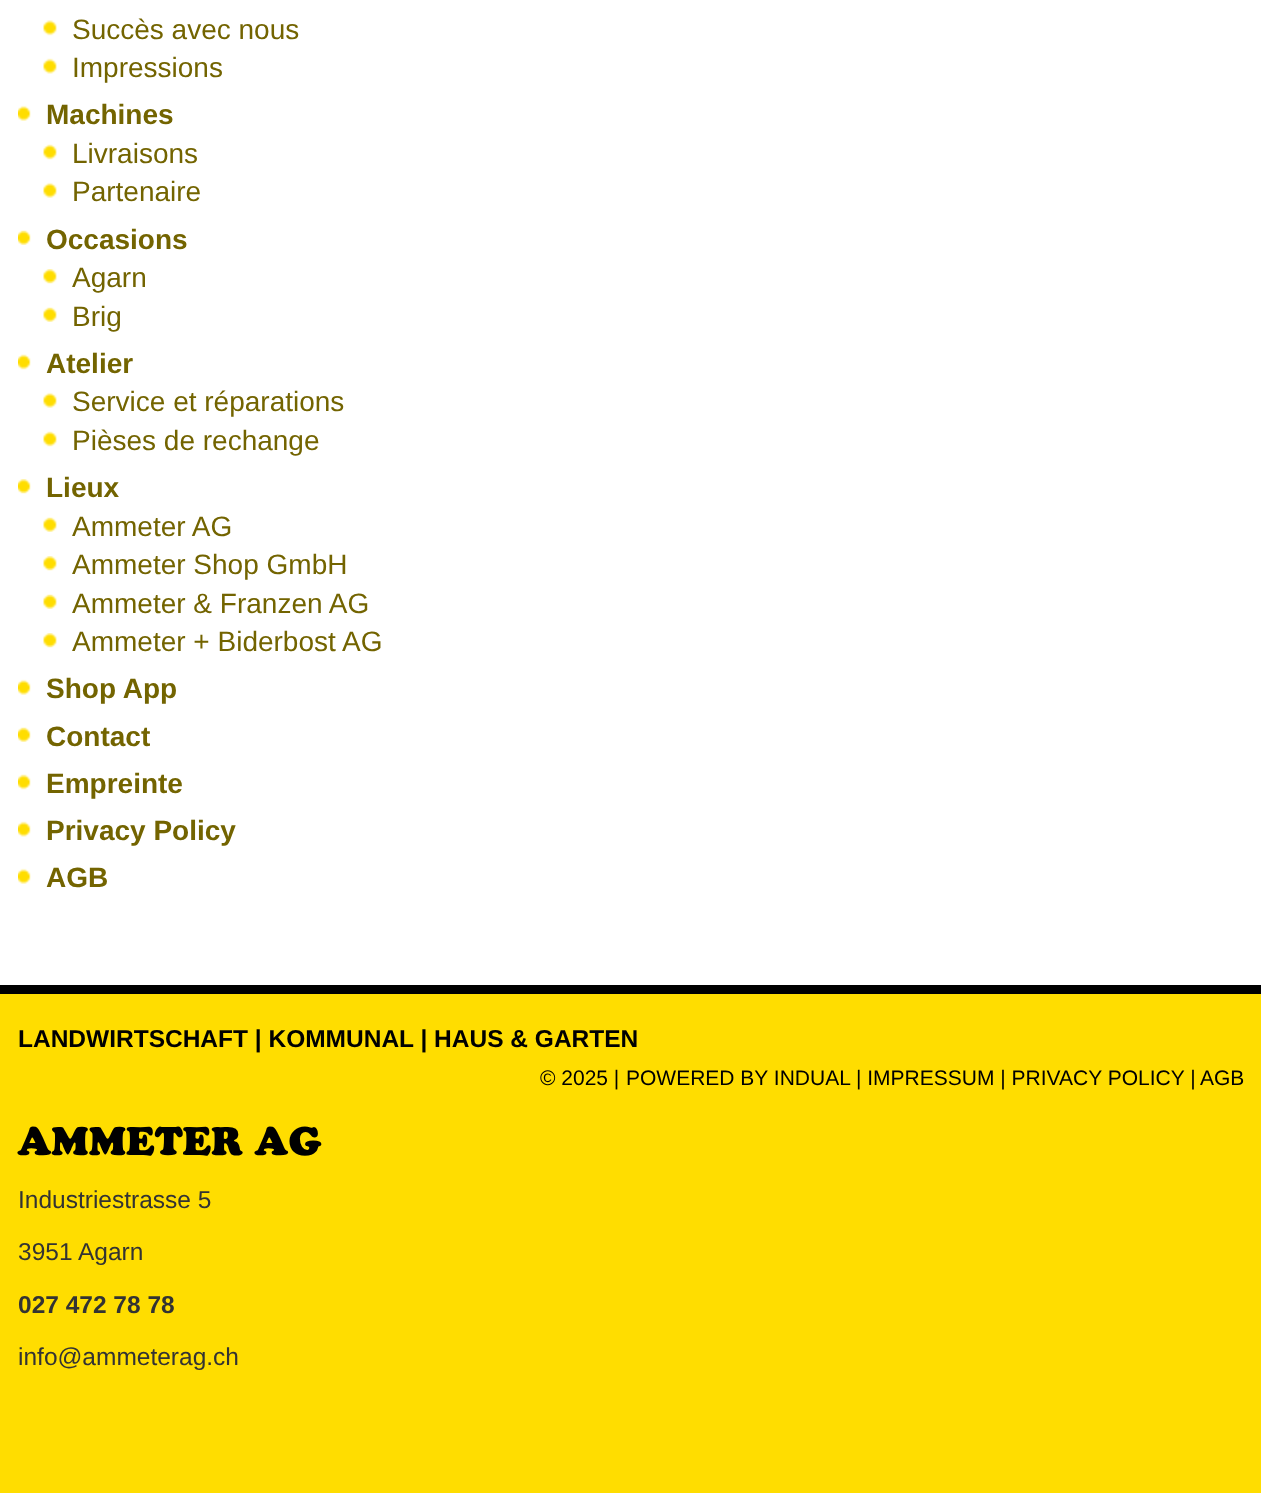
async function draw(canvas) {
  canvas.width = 1261;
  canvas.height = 1493;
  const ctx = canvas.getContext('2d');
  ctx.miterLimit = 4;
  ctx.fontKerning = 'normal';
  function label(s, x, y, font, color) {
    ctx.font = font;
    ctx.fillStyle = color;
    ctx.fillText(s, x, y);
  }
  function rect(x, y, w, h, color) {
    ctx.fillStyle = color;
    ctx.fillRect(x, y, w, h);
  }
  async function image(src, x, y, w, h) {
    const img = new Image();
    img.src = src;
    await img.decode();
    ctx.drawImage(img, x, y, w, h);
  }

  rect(0, 0, 1261, 1493, '#fff');
  await image('assets/img1.png', 43, 20, 14, 16);
  label('Succès avec nous', 72, 39, '28px Liberation Sans', '#736400');
  await image('assets/img2.png', 43, 58, 14, 16);
  label('Impressions', 72, 77, '28px Liberation Sans', '#736400');
  await image('assets/img3.png', 18, 105, 13, 16);
  label('Machines', 46, 124, 'bold 28px Liberation Sans', '#736400');
  await image('assets/img4.png', 43, 144, 14, 16);
  label('Livraisons', 72, 163, '28px Liberation Sans', '#736400');
  await image('assets/img5.png', 43, 182, 14, 16);
  label('Partenaire', 72, 201, '28px Liberation Sans', '#736400');
  await image('assets/img6.png', 18, 230, 13, 15);
  label('Occasions', 46, 249, 'bold 28px Liberation Sans', '#736400');
  await image('assets/img7.png', 43, 269, 14, 15);
  label('Agarn', 72, 287, '28px Liberation Sans', '#736400');
  await image('assets/img8.png', 43, 307, 14, 15);
  label('Brig', 72, 326, '28px Liberation Sans', '#736400');
  await image('assets/img9.png', 18, 354, 13, 16);
  label('Atelier', 46, 373, 'bold 28px Liberation Sans', '#736400');
  await image('assets/img5.png', 43, 392, 14, 16);
  label('Service et réparations', 72, 411, '28px Liberation Sans', '#736400');
  await image('assets/img4.png', 43, 431, 14, 16);
  label('Pièses de rechange', 72, 450, '28px Liberation Sans', '#736400');
  await image('assets/img10.png', 18, 479, 13, 15);
  label('Lieux', 46, 497, 'bold 28px Liberation Sans', '#736400');
  await image('assets/img8.png', 43, 517, 14, 15);
  label('Ammeter AG', 72, 536, '28px Liberation Sans', '#736400');
  await image('assets/img7.png', 43, 556, 14, 15);
  label('Ammeter Shop GmbH', 72, 574, '28px Liberation Sans', '#736400');
  await image('assets/img8.png', 43, 594, 14, 15);
  label('Ammeter & Franzen AG', 72, 613, '28px Liberation Sans', '#736400');
  await image('assets/img7.png', 43, 633, 14, 15);
  label('Ammeter + Biderbost AG', 72, 651, '28px Liberation Sans', '#736400');
  await image('assets/img3.png', 18, 679, 13, 16);
  label('Shop App', 46, 698, 'bold 28px Liberation Sans', '#736400');
  await image('assets/img6.png', 18, 727, 13, 15);
  label('Contact', 46, 746, 'bold 28px Liberation Sans', '#736400');
  await image('assets/img11.png', 18, 774, 13, 16);
  label('Empreinte', 46, 793, 'bold 28px Liberation Sans', '#736400');
  await image('assets/img12.png', 18, 821, 13, 16);
  label('Privacy Policy', 46, 840, 'bold 28px Liberation Sans', '#736400');
  await image('assets/img3.png', 18, 868, 13, 16);
  label('AGB', 46, 887, 'bold 28px Liberation Sans', '#736400');
  rect(0, 994, 1261, 499, '#fd0');
  rect(0, 985, 1261, 9, '#000');
  label('LANDWIRTSCHAFT | KOMMUNAL | HAUS & GARTEN', 18, 1047, 'bold 24.5px Liberation Sans', '#000');
  label('© 2025 |', 540, 1085, '21px Liberation Sans', '#000');
  label('POWERED BY INDUAL', 626, 1085, '21px Liberation Sans', '#000');
  label('| IMPRESSUM | PRIVACY POLICY |', 856, 1085, '21px Liberation Sans', '#000');
  label('AGB', 1200, 1085, '21px Liberation Sans', '#000');
  label('AMMETER AG', 18, 1155, '900 38.5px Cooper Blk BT', '#000');
  label('Industriestrasse 5', 18, 1208, '24.5px Liberation Sans', '#333');
  label('3951 Agarn', 18, 1260, '24.5px Liberation Sans', '#333');
  label('027 472 78 78', 18, 1313, 'bold 24.5px Liberation Sans', '#333');
  label('info@ammeterag.ch', 18, 1365, '24.5px Liberation Sans', '#333');
}

draw(document.querySelector('canvas'));
